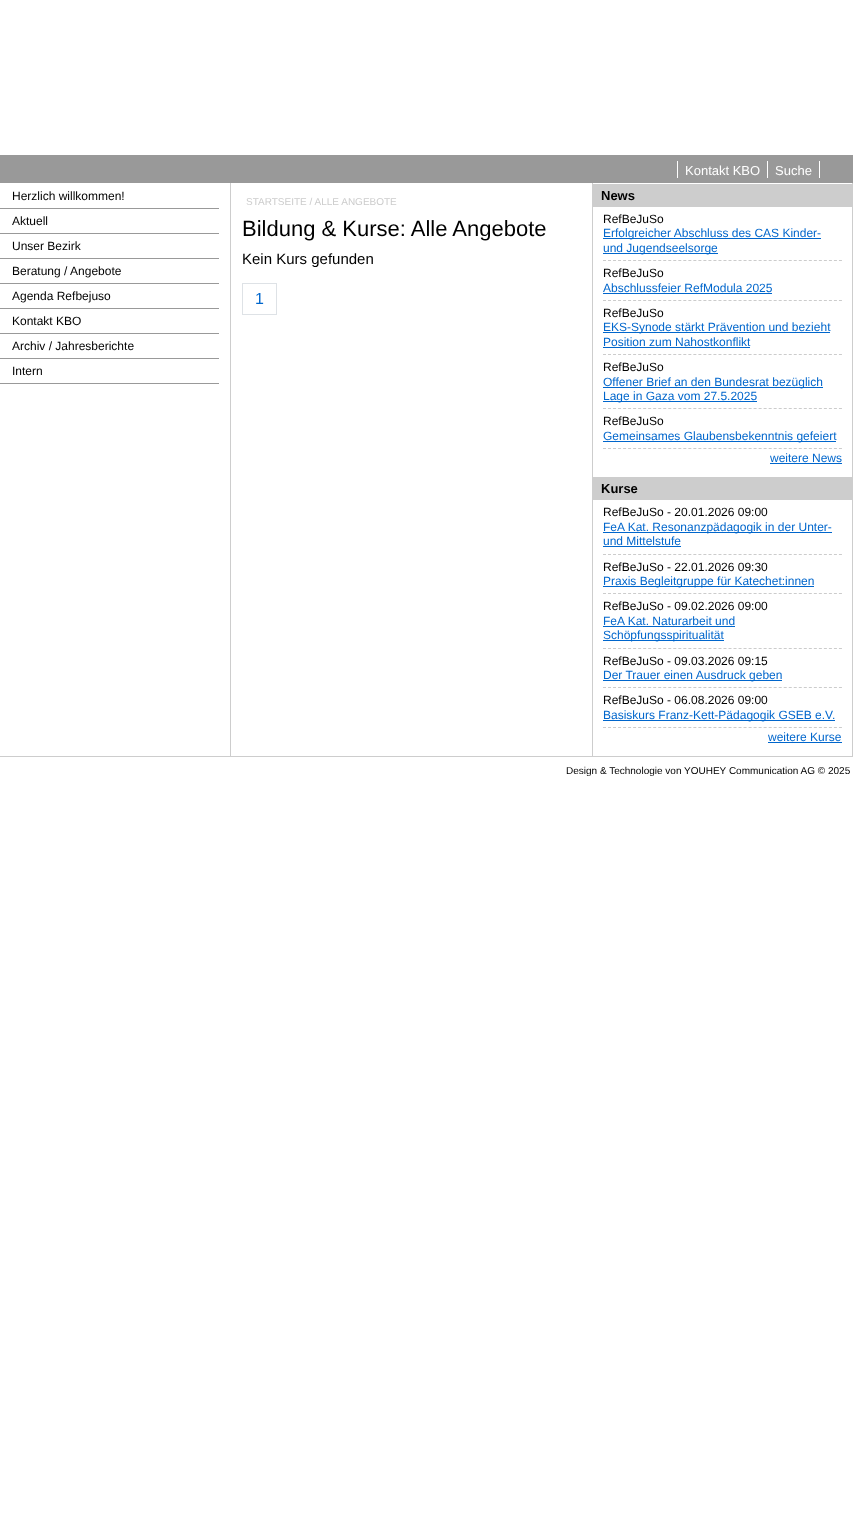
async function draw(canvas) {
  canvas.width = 857;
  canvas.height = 1531;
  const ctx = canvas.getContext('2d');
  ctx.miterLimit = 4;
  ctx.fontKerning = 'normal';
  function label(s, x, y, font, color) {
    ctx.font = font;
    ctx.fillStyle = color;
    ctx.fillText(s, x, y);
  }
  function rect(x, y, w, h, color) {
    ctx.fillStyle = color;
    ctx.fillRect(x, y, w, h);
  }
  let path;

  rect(0, 0, 857, 1531, '#fff');
  rect(0, 155, 853, 28, '#999');
  label('Kontakt KBO', 685, 175, '13px Liberation Sans', '#fff');
  rect(767, 161, 1, 17, '#fff');
  rect(677, 161, 1, 17, '#fff');
  label('Suche', 775, 175, '13px Liberation Sans', '#fff');
  rect(819, 161, 1, 17, '#fff');
  rect(230, 183, 1, 573, '#cdcdcd');
  rect(0, 208, 219, 1, '#999');
  label('Herzlich willkommen!', 12, 200, '12px Liberation Sans', '#000');
  rect(0, 233, 219, 1, '#999');
  label('Aktuell', 12, 225, '12px Liberation Sans', '#000');
  rect(0, 258, 219, 1, '#999');
  label('Unser Bezirk', 12, 250, '12px Liberation Sans', '#000');
  rect(0, 283, 219, 1, '#999');
  label('Beratung / Angebote', 12, 275, '12px Liberation Sans', '#000');
  rect(0, 308, 219, 1, '#999');
  label('Agenda Refbejuso', 12, 300, '12px Liberation Sans', '#000');
  rect(0, 333, 219, 1, '#999');
  label('Kontakt KBO', 12, 325, '12px Liberation Sans', '#000');
  rect(0, 358, 219, 1, '#999');
  label('Archiv / Jahresberichte', 12, 350, '12px Liberation Sans', '#000');
  rect(0, 383, 219, 1, '#999');
  label('Intern', 12, 375, '12px Liberation Sans', '#000');
  rect(592, 183, 1, 573, '#cdcdcd');
  label('STARTSEITE / ALLE ANGEBOTE', 246, 205, '10px Liberation Sans', '#ccc');
  label('Bildung & Kurse: Alle Angebote', 242, 236, '22px Liberation Sans', '#000');
  label('Kein Kurs gefunden', 242, 264, '15px Liberation Sans', '#000');
  ctx.strokeStyle = '#dee2e6';
  ctx.strokeRect(242.5, 283.5, 34, 31);
  label('1', 255, 304, '16px Liberation Sans', '#06c');
  rect(852, 183, 1, 573, '#cdcdcd');
  rect(593, 184, 259, 23, '#cdcdcd');
  label('News', 601, 200, 'bold 13px Liberation Sans', '#000');
  path = new Path2D('M603 260.5H842');
  ctx.strokeStyle = '#ccc';
  ctx.setLineDash([3, 2.02]);
  ctx.stroke(path);
  label('RefBeJuSo', 603, 223, '12px Liberation Sans', '#000');
  rect(603, 238, 218, 1, '#06c');
  label('Erfolgreicher Abschluss des CAS Kinder-', 603, 237, '12px Liberation Sans', '#06c');
  rect(603, 253, 115, 1, '#06c');
  label('und Jugendseelsorge', 603, 252, '12px Liberation Sans', '#06c');
  path = new Path2D('M603 300.5H842');
  ctx.stroke(path);
  label('RefBeJuSo', 603, 277, '12px Liberation Sans', '#000');
  label('Abschlussfeier RefModula 2025', 603, 292, '12px Liberation Sans', '#06c');
  rect(603, 293, 169, 1, '#06c');
  path = new Path2D('M603 354.5H842');
  ctx.stroke(path);
  label('RefBeJuSo', 603, 317, '12px Liberation Sans', '#000');
  rect(603, 332, 227, 1, '#06c');
  label('EKS-Synode stärkt Prävention und bezieht', 603, 331, '12px Liberation Sans', '#06c');
  label('Position zum Nahostkonflikt', 603, 346, '12px Liberation Sans', '#06c');
  rect(603, 347, 147, 1, '#06c');
  path = new Path2D('M603 408.5H842');
  ctx.stroke(path);
  label('RefBeJuSo', 603, 371, '12px Liberation Sans', '#000');
  rect(603, 387, 220, 1, '#06c');
  label('Offener Brief an den Bundesrat bezüglich', 603, 386, '12px Liberation Sans', '#06c');
  rect(603, 401, 154, 1, '#06c');
  label('Lage in Gaza vom 27.5.2025', 603, 400, '12px Liberation Sans', '#06c');
  path = new Path2D('M603 448.5H842');
  ctx.stroke(path);
  label('RefBeJuSo', 603, 425, '12px Liberation Sans', '#000');
  rect(603, 441, 233, 1, '#06c');
  label('Gemeinsames Glaubensbekenntnis gefeiert', 603, 440, '12px Liberation Sans', '#06c');
  label('weitere News', 770, 462, '12px Liberation Sans', '#06c');
  rect(770, 463, 72, 1, '#06c');
  rect(593, 477, 259, 23, '#cdcdcd');
  label('Kurse', 601, 493, 'bold 13px Liberation Sans', '#000');
  path = new Path2D('M603 554.5H842');
  ctx.stroke(path);
  label('RefBeJuSo - 20.01.2026 09:00', 603, 516, '12px Liberation Sans', '#000');
  rect(603, 532, 229, 1, '#06c');
  label('FeA Kat. Resonanzpädagogik in der Unter-', 603, 531, '12px Liberation Sans', '#06c');
  label('und Mittelstufe', 603, 545, '12px Liberation Sans', '#06c');
  rect(603, 546, 78, 1, '#06c');
  path = new Path2D('M603 593.5H842');
  ctx.stroke(path);
  label('RefBeJuSo - 22.01.2026 09:30', 603, 571, '12px Liberation Sans', '#000');
  rect(603, 586, 211, 1, '#06c');
  label('Praxis Begleitgruppe für Katechet:innen', 603, 585, '12px Liberation Sans', '#06c');
  path = new Path2D('M603 648.5H842');
  ctx.stroke(path);
  label('RefBeJuSo - 09.02.2026 09:00', 603, 610, '12px Liberation Sans', '#000');
  label('FeA Kat. Naturarbeit und', 603, 625, '12px Liberation Sans', '#06c');
  rect(603, 626, 132, 1, '#06c');
  rect(603, 640, 121, 1, '#06c');
  label('Schöpfungsspiritualität', 603, 639, '12px Liberation Sans', '#06c');
  path = new Path2D('M603 687.5H842');
  ctx.stroke(path);
  label('RefBeJuSo - 09.03.2026 09:15', 603, 665, '12px Liberation Sans', '#000');
  rect(603, 680, 179, 1, '#06c');
  label('Der Trauer einen Ausdruck geben', 603, 679, '12px Liberation Sans', '#06c');
  path = new Path2D('M603 727.5H842');
  ctx.stroke(path);
  label('RefBeJuSo - 06.08.2026 09:00', 603, 704, '12px Liberation Sans', '#000');
  rect(603, 720, 232, 1, '#06c');
  label('Basiskurs Franz-Kett-Pädagogik GSEB e.V.', 603, 719, '12px Liberation Sans', '#06c');
  label('weitere Kurse', 768, 741, '12px Liberation Sans', '#06c');
  rect(768, 742, 74, 1, '#06c');
  rect(0, 756, 853, 1, '#cdcdcd');
  label('Design & Technologie von YOUHEY Communication AG © 2025', 566, 774, '10px Liberation Sans', '#000');
}

draw(document.querySelector('canvas'));
